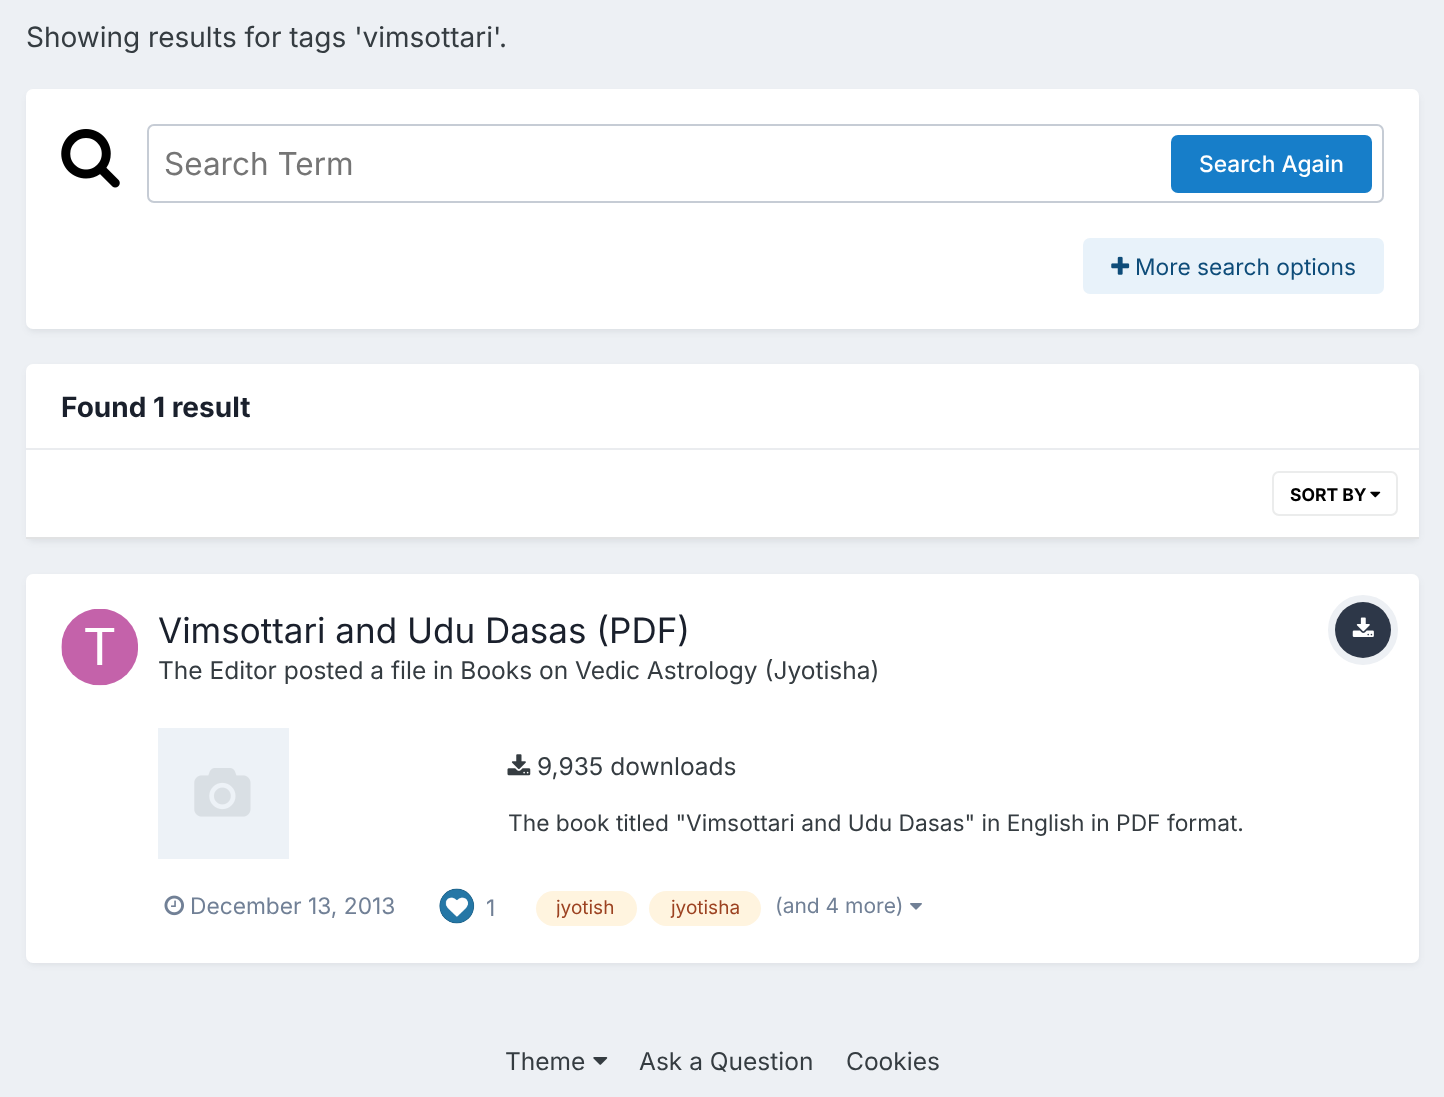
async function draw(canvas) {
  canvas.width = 1444;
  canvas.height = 1097;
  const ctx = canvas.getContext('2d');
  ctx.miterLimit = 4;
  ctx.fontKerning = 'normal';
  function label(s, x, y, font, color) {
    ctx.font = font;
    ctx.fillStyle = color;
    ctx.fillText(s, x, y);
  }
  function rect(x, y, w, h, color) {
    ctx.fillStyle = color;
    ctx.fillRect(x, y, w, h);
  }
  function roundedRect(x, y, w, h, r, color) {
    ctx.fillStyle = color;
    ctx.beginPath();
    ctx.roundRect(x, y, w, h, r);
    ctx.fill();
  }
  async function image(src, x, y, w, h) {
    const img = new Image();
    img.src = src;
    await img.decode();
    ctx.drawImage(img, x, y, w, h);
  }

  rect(0, 0, 1444, 1097, '#edf0f4');
  label('Showing results for tags \'vimsottari\'.', 26, 47, '28px Inter', '#353c41');
  ctx.fillStyle = '#2d37481a';
  ctx.filter = 'blur(3.5px)';
  ctx.beginPath();
  ctx.roundRect(28, 95, 1390, 236, 5);
  ctx.fill();
  ctx.filter = 'none';
  roundedRect(26, 89, 1393, 240, 7, '#fff');
  await image('assets/img1.png', 61, 129, 59, 59);
  ctx.beginPath();
  ctx.roundRect(148, 125, 1235, 77, 6);
  ctx.strokeStyle = '#c6ccd5';
  ctx.lineWidth = 2;
  ctx.stroke();
  label('Search Term', 164, 175, '31.5px Inter', '#757575');
  roundedRect(1171, 135, 201, 58, 7, '#177ec9');
  label('Search Again', 1199, 172, '500 22.75px Inter', '#fff');
  roundedRect(1083, 238, 301, 56, 7, '#e8f2fa');
  await image('assets/img2.png', 1111, 256, 19, 19);
  label('More search options', 1135, 275, '22.75px Inter', '#0e4c79');
  ctx.fillStyle = '#2d37481a';
  ctx.filter = 'blur(3.5px)';
  ctx.beginPath();
  ctx.roundRect(28, 369, 1390, 172, 5);
  ctx.fill();
  ctx.filter = 'none';
  ctx.fillStyle = '#fff';
  ctx.beginPath();
  ctx.roundRect(26, 364, 1393, 86, [7, 7, 0, 0]);
  ctx.fill();
  rect(26, 448, 1393, 2, '#eaecef');
  label('Found 1 result', 61, 417, 'bold 28px Inter', '#1a202c');
  rect(26, 450, 1393, 87, '#fff');
  rect(26, 537, 1393, 2, '#e1e2e3');
  await image('assets/img3.png', 1370, 491, 11, 7);
  ctx.beginPath();
  ctx.roundRect(1273, 472, 124, 43, 6);
  ctx.strokeStyle = '#ebecec';
  ctx.stroke();
  label('SORT BY', 1290, 501, 'bold 17.5px Inter', '#000');
  ctx.fillStyle = '#2d37481a';
  ctx.filter = 'blur(3.5px)';
  ctx.beginPath();
  ctx.roundRect(28, 579, 1390, 385, 5);
  ctx.fill();
  ctx.filter = 'none';
  roundedRect(26, 574, 1393, 389, 7, '#fff');
  await image('assets/img4.png', 61, 609, 77, 77);
  label('Vimsottari and Udu Dasas (PDF)', 158, 643, '35px Inter', '#1a202c');
  label('The Editor posted a file in Books on Vedic Astrology (Jyotisha)', 158, 679, '24.5px Inter', '#353c41');
  ctx.beginPath();
  ctx.arc(1363, 630, 31.5, 0, 2 * Math.PI);
  ctx.strokeStyle = '#edf0f4';
  ctx.lineWidth = 7;
  ctx.stroke();
  ctx.fillStyle = '#2d3748';
  ctx.beginPath();
  ctx.arc(1363, 630, 28, 0, 2 * Math.PI);
  ctx.fill();
  await image('assets/img5.png', 1352, 617, 22, 20);
  rect(158, 728, 131, 131, '#edf2f7');
  await image('assets/img6.png', 194, 768, 57, 49);
  await image('assets/img7.png', 507, 754, 24, 22);
  label('9,935 downloads', 537, 775, '24.5px Inter', '#353c41');
  label('The book titled "Vimsottari and Udu Dasas" in English in PDF format.', 508, 831, '22.75px Inter', '#353c41');
  await image('assets/img8.png', 164, 895, 20, 21);
  label('December 13, 2013', 190, 914, '22.75px Inter', '#718096');
  await image('assets/img9.png', 439, 888, 36, 36);
  label('1', 486, 916, '22.75px Inter', '#718096');
  roundedRect(536, 891, 101, 35, 17.5, '#fff4df');
  ctx.save();
  ctx.beginPath();
  ctx.rect(557, 891, 59, 35);
  ctx.clip();
  label('jyotish', 556, 914, '19px Inter', '#9c4221');
  ctx.restore();
  roundedRect(649, 891, 112, 35, 17.5, '#fff4df');
  label('jyotisha', 671, 914, '19px Inter', '#9c4221');
  label('(and 4 more)', 775, 913, '21px Inter', '#718096');
  await image('assets/img10.png', 910, 903, 12, 7);
  label('Theme', 505, 1070, '24.5px Inter', '#353c41');
  await image('assets/img11.png', 593, 1057, 15, 8);
  label('Ask a Question', 639, 1070, '24.5px Inter', '#353c41');
  label('Cookies', 846, 1070, '24.5px Inter', '#353c41');
}

draw(document.querySelector('canvas'));
